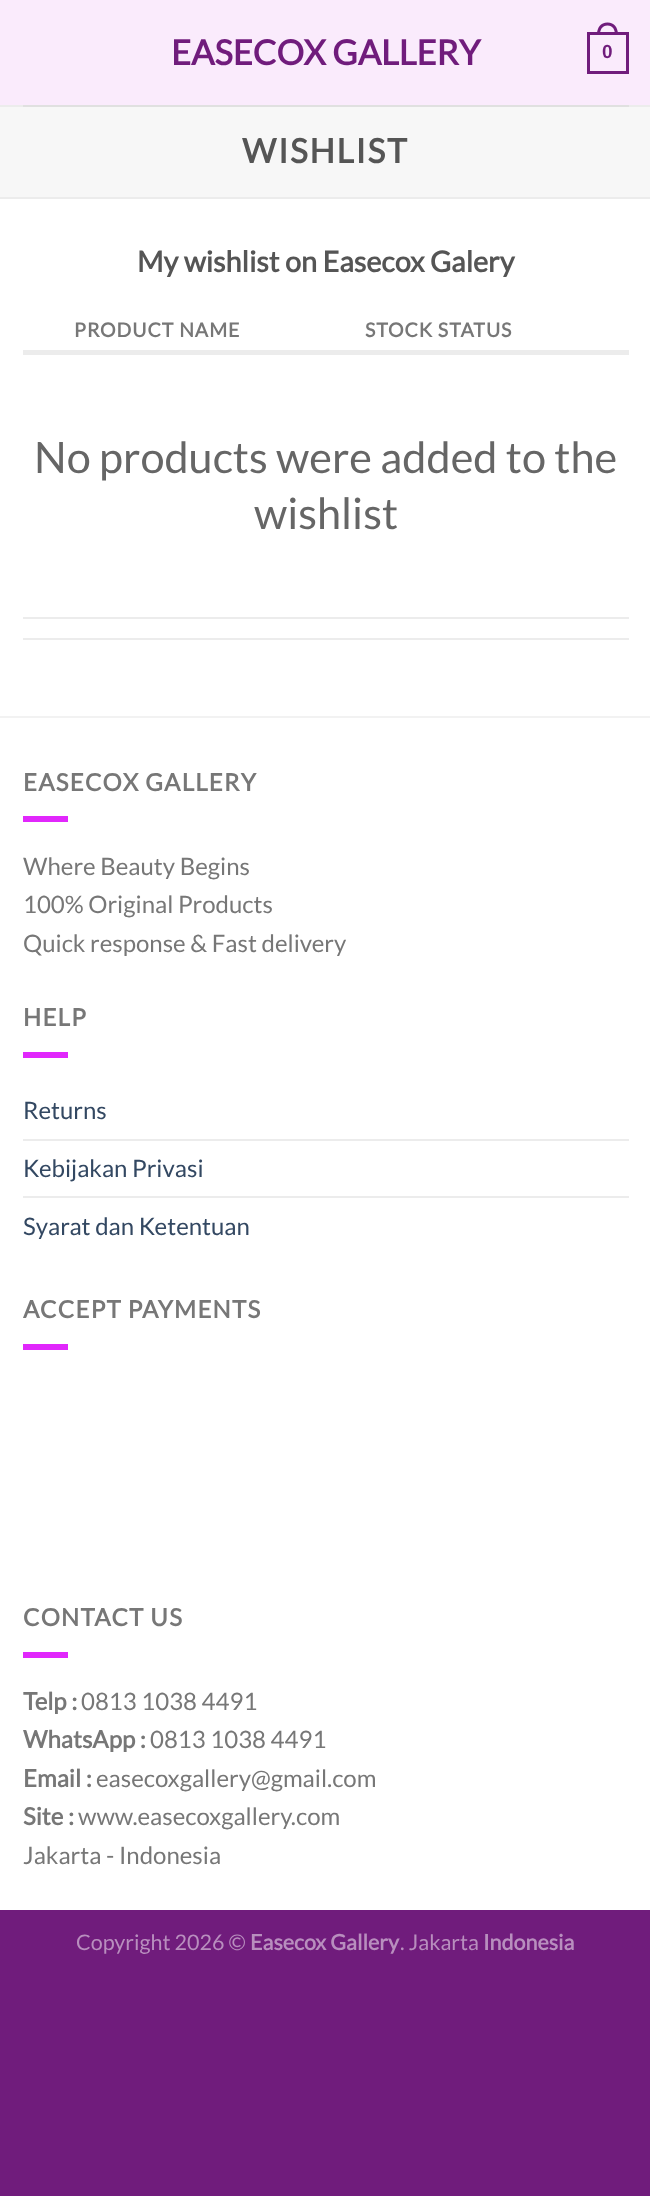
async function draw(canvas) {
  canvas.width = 650;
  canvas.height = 2196;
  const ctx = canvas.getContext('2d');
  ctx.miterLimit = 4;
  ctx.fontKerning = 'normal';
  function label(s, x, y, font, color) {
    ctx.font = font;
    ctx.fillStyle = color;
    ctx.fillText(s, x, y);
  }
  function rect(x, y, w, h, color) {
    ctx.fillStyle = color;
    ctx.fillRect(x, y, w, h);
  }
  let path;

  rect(0, 0, 650, 2196, '#701c7c');
  rect(0, 199, 650, 1711, '#fff');
  rect(0, 0, 650, 105, '#faebfc');
  label('EASECOX GALLERY', 171, 65, 'bold 34.5px Lato', '#701c7c');
  ctx.strokeStyle = '#701c7c';
  ctx.lineWidth = 3;
  ctx.strokeRect(588.5, 33.5, 39, 39);
  path = new Path2D('M607.5 22.5C614.5 22.5 618 28 618 34.5H597C597 28 600.5 22.5 607.5 22.5ZM607.5 25.5C613 25.5 615 30 615 34.5H600C600 30 602 25.5 607.5 25.5Z');
  ctx.fill(path, 'evenodd');
  label('0', 602, 58, 'bold 19px Liberation Sans', '#701c7c');
  rect(0, 105, 650, 2, '#ececec');
  rect(23, 105, 606, 2, '#e0e0e0');
  rect(0, 107, 650, 90, '#f7f7f7');
  rect(0, 197, 650, 2, '#ececec');
  ctx.letterSpacing = '1.75px';
  label('WISHLIST', 242, 163, 'bold 33.5px Lato', '#555');
  ctx.letterSpacing = '0px';
  label('My wishlist on Easecox Galery', 137, 272, 'bold 28.75px Lato', '#555');
  ctx.letterSpacing = '1px';
  label('PRODUCT NAME', 74, 337, 'bold 19.5px Lato', '#777');
  label('STOCK STATUS', 365, 337, 'bold 19.5px Lato', '#777');
  rect(23, 350, 606, 5, '#ececec');
  rect(23, 617, 606, 2, '#ececec');
  ctx.letterSpacing = '0px';
  label('No products were added to the', 34, 473, '43.25px Lato', '#666');
  label('wishlist', 254, 529, '43.25px Lato', '#666');
  rect(23, 638, 606, 2, '#ececec');
  rect(0, 716, 650, 2, '#f2f2f2');
  ctx.letterSpacing = '1.25px';
  label('EASECOX GALLERY', 23, 791, 'bold 24px Lato', '#777');
  rect(23, 816, 45, 6, '#e127fc');
  ctx.letterSpacing = '0px';
  label('Where Beauty Begins', 23, 875, '24px Lato', '#777');
  label('100% Original Products', 23, 913, '24px Lato', '#777');
  label('Quick response & Fast delivery', 23, 952, '24px Lato', '#777');
  ctx.letterSpacing = '1.25px';
  label('HELP', 23, 1026, 'bold 24px Lato', '#777');
  rect(23, 1052, 45, 6, '#e127fc');
  ctx.letterSpacing = '0px';
  label('Returns', 23, 1119, '24px Lato', '#334862');
  rect(23, 1139, 606, 2, '#ececec');
  label('Kebijakan Privasi', 23, 1177, '24px Lato', '#334862');
  rect(23, 1196, 606, 2, '#ececec');
  label('Syarat dan Ketentuan', 23, 1235, '24px Lato', '#334862');
  ctx.letterSpacing = '1.25px';
  label('ACCEPT PAYMENTS', 23, 1318, 'bold 24px Lato', '#777');
  rect(23, 1344, 45, 6, '#e127fc');
  label('CONTACT US', 23, 1626, 'bold 24px Lato', '#777');
  rect(23, 1652, 45, 6, '#e127fc');
  ctx.letterSpacing = '0px';
  label('Telp :', 23, 1710, 'bold 24px Lato', '#777');
  label('0813 1038 4491', 81, 1710, '24px Lato', '#777');
  label('WhatsApp :', 23, 1748, 'bold 24px Lato', '#777');
  label('0813 1038 4491', 150, 1748, '24px Lato', '#777');
  label('Email :', 23, 1787, 'bold 24px Lato', '#777');
  label('easecoxgallery@gmail.com', 96, 1787, '24px Lato', '#777');
  label('Site :', 23, 1825, 'bold 24px Lato', '#777');
  label('www.easecoxgallery.com', 78, 1825, '24px Lato', '#777');
  label('Jakarta - Indonesia', 23, 1864, '24px Lato', '#777');
  label('Copyright 2026 ©', 76, 1950, '21.5px Lato', '#b88ebe');
  label('Easecox Gallery', 250, 1950, 'bold 21.5px Lato', '#b88ebe');
  label('. Jakarta', 400, 1950, '21.5px Lato', '#b88ebe');
  label('Indonesia', 483, 1950, 'bold 21.5px Lato', '#b88ebe');
}

draw(document.querySelector('canvas'));
